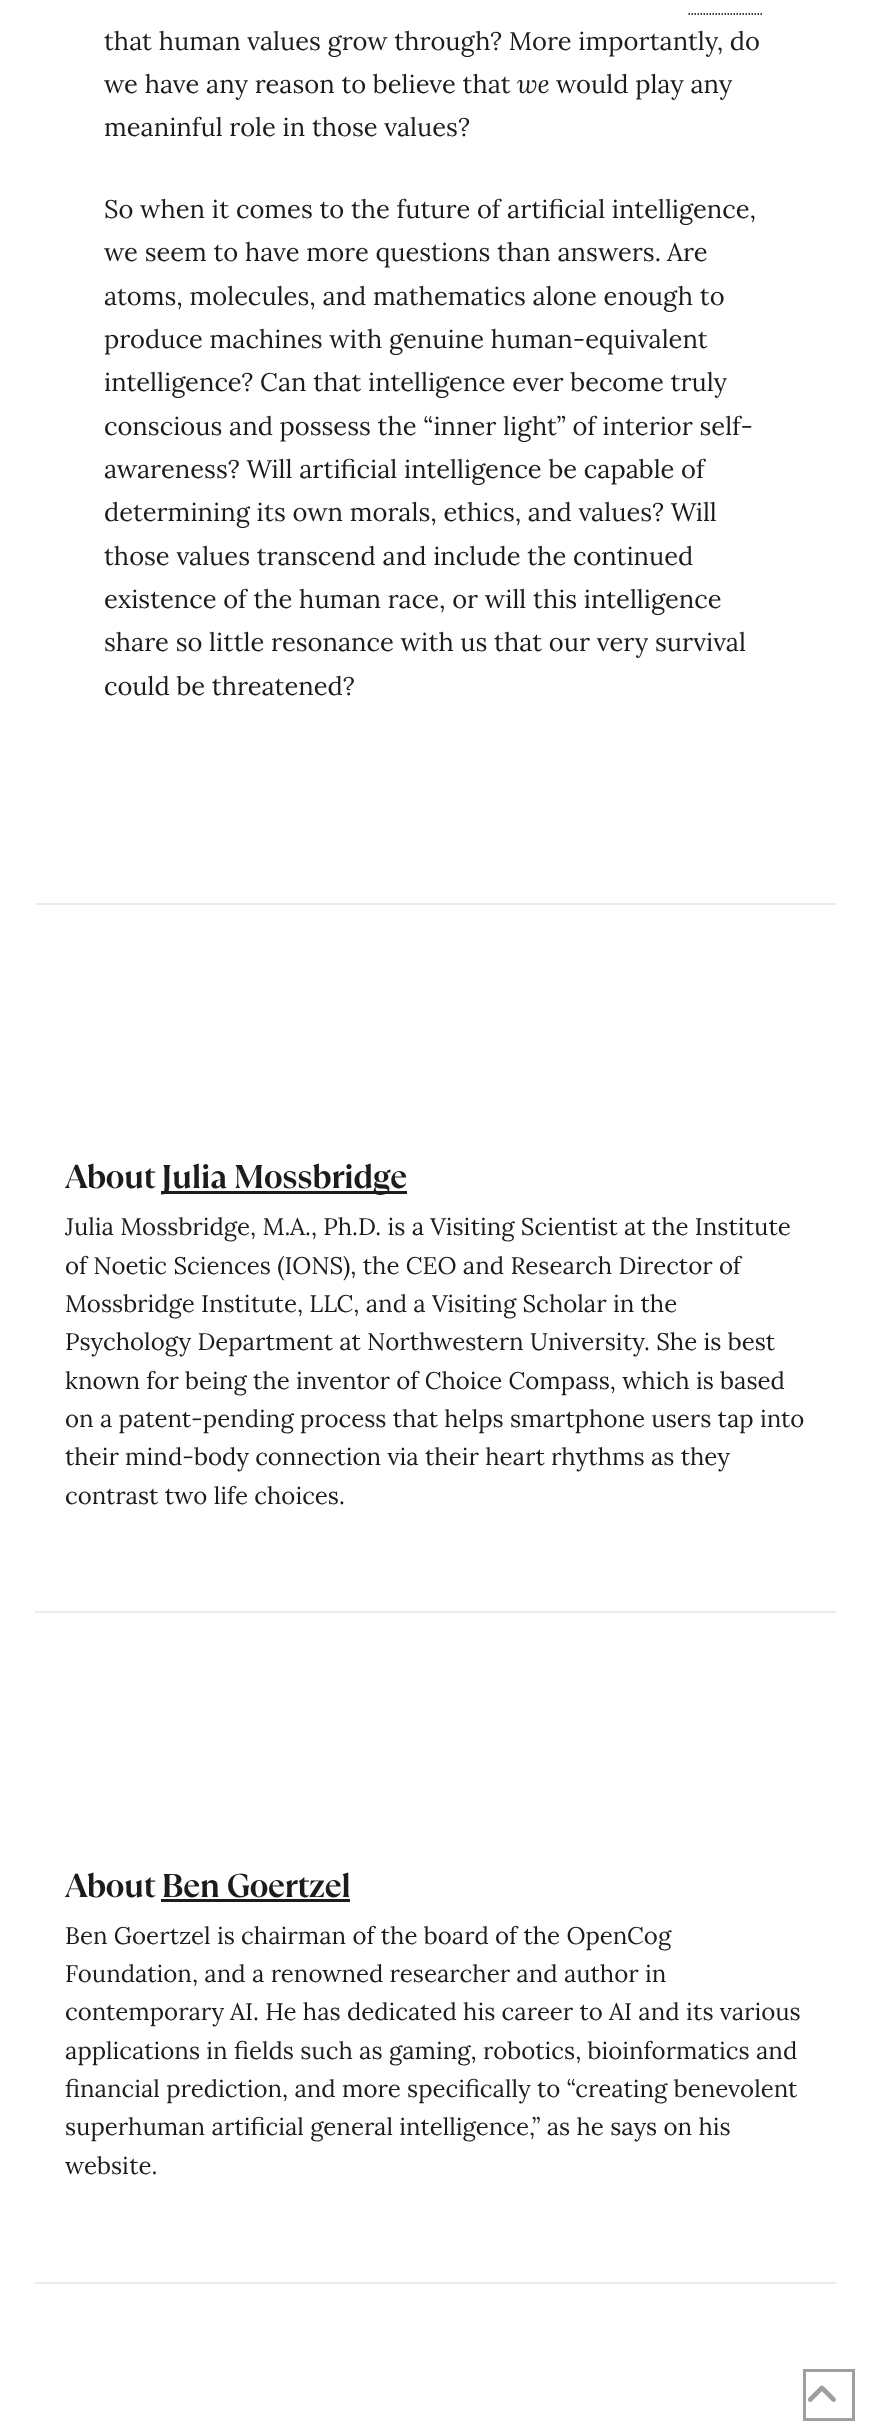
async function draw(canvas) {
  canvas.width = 869;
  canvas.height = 2435;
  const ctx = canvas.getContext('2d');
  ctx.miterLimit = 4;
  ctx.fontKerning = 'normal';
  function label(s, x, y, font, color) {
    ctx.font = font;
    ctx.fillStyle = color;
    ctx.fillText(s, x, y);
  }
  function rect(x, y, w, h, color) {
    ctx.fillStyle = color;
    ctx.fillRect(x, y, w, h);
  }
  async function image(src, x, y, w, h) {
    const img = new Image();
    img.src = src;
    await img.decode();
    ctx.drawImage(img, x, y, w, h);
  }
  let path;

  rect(0, 0, 869, 2435, '#fff');
  path = new Path2D('M688.5 14H763.5');
  ctx.strokeStyle = '#000';
  ctx.lineWidth = 1.5;
  ctx.setLineDash([1.5, 1.5]);
  ctx.stroke(path);
  label('that human values grow through? More importantly, do', 104, 50, '25.5px Lora', '#1c1c1c');
  label('we have any reason to believe that', 104, 93, '25.5px Lora', '#1c1c1c');
  label('we', 517, 93, 'italic 25.5px Lora', '#1c1c1c');
  label('would play any', 556, 93, '25.5px Lora', '#1c1c1c');
  label('meaninful role in those values?', 104, 136, '25.5px Lora', '#1c1c1c');
  label('So when it comes to the future of artificial intelligence,', 104, 218, '25.5px Lora', '#1c1c1c');
  label('we seem to have more questions than answers.', 104, 261, '25.5px Lora', '#1c1c1c');
  label('A', 667, 261, '25.5px "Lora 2"', '#1c1c1c');
  label('re', 683, 261, '25.5px Lora', '#1c1c1c');
  label('atoms, molecules, and mathematics alone enough to', 104, 305, '25.5px Lora', '#1c1c1c');
  label('produce machines with genuine human-equivalent', 104, 348, '25.5px Lora', '#1c1c1c');
  label('intelligence? Can that intelligence ever become truly', 104, 391, '25.5px Lora', '#1c1c1c');
  label('conscious and possess the “inner light” of interior self-', 104, 435, '25.5px Lora', '#1c1c1c');
  label('awareness? Will artificial intelligence be capable of', 104, 478, '25.5px Lora', '#1c1c1c');
  label('determining its own morals, ethics, and values? Will', 104, 521, '25.5px Lora', '#1c1c1c');
  label('those values transcend and include the continued', 104, 565, '25.5px Lora', '#1c1c1c');
  label('existence of the human race, or will this intelligence', 104, 608, '25.5px Lora', '#1c1c1c');
  label('share so little resonance with us that our very survival', 104, 651, '25.5px Lora', '#1c1c1c');
  label('could be threatened?', 104, 695, '25.5px Lora', '#1c1c1c');
  rect(35, 903, 801, 2, '#ececec');
  ctx.letterSpacing = '-0.8px';
  label('About', 65, 1188, 'bold 33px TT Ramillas', '#1c1c1c');
  rect(161, 1191, 246, 3, '#1c1c1c');
  label('Julia Mossbridge', 161, 1188, 'bold 33px TT Ramillas', '#1c1c1c');
  ctx.letterSpacing = '0px';
  label('Julia Mossbridge, M.', 65, 1235, '24px Lora', '#1c1c1c');
  label('A', 290, 1235, '24px "Lora 2"', '#1c1c1c');
  label('., Ph.D. is a Visiting Scientist at the Institute', 305, 1235, '24px Lora', '#1c1c1c');
  label('of Noetic Sciences (IONS), the CEO and Research Director of', 65, 1274, '24px Lora', '#1c1c1c');
  label('Mossbridge Institute, LLC, and a Visiting Scholar in the', 65, 1312, '24px Lora', '#1c1c1c');
  label('Psychology Department at Northwestern University. She is best', 65, 1350, '24px Lora', '#1c1c1c');
  label('known for being the inventor of Choice Compass, which is based', 65, 1389, '24px Lora', '#1c1c1c');
  label('on a patent-pending process that helps smartphone users tap into', 65, 1427, '24px Lora', '#1c1c1c');
  label('their mind-body connection via their heart rhythms as they', 65, 1465, '24px Lora', '#1c1c1c');
  label('contrast two life choices.', 65, 1504, '24px Lora', '#1c1c1c');
  rect(35, 1611, 801, 2, '#ececec');
  ctx.letterSpacing = '-0.8px';
  label('About Ben Goertzel', 65, 1897, 'bold 33px TT Ramillas', '#1c1c1c');
  rect(161, 1899, 189, 3, '#1c1c1c');
  ctx.letterSpacing = '0px';
  label('Ben Goertzel is chairman of the board of the OpenCog', 65, 1944, '24px Lora', '#1c1c1c');
  label('Foundation, and a renowned researcher and author in', 65, 1982, '24px Lora', '#1c1c1c');
  label('contemporary', 65, 2020, '24px Lora', '#1c1c1c');
  label('A', 230, 2020, '24px "Lora 2"', '#1c1c1c');
  label('I. He has dedicated his career to', 245, 2020, '24px Lora', '#1c1c1c');
  label('A', 609, 2020, '24px "Lora 2"', '#1c1c1c');
  label('I and its various', 624, 2020, '24px Lora', '#1c1c1c');
  label('applications in fields such as gaming, robotics, bioinformatics and', 65, 2059, '24px Lora', '#1c1c1c');
  label('financial prediction, and more specifically to “creating benevolent', 65, 2097, '24px Lora', '#1c1c1c');
  label('superhuman artificial general intelligence,” as he says on his', 65, 2135, '24px Lora', '#1c1c1c');
  label('website.', 65, 2174, '24px Lora', '#1c1c1c');
  rect(35, 2282, 801, 2, '#ececec');
  ctx.strokeStyle = '#9f9f9f';
  ctx.lineWidth = 3;
  ctx.setLineDash([]);
  ctx.strokeRect(804.5, 2370.5, 49, 49);
  await image('assets/img1.png', 807, 2385, 29, 17);
}

draw(document.querySelector('canvas'));
